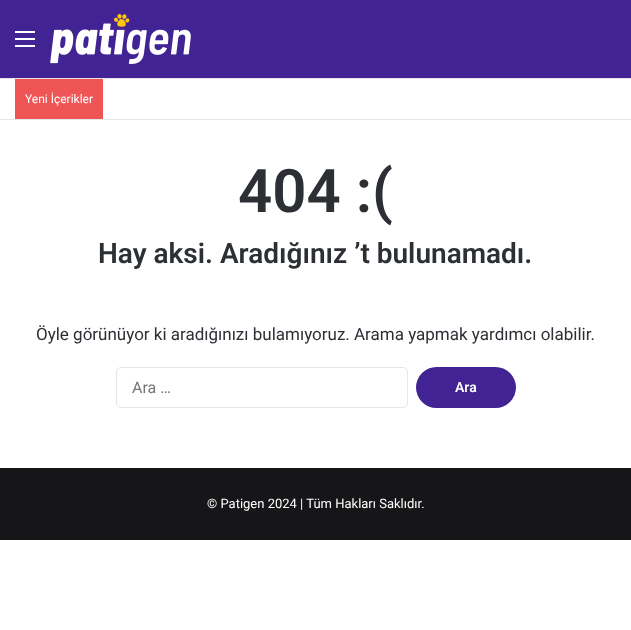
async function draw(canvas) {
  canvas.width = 631;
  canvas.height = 630;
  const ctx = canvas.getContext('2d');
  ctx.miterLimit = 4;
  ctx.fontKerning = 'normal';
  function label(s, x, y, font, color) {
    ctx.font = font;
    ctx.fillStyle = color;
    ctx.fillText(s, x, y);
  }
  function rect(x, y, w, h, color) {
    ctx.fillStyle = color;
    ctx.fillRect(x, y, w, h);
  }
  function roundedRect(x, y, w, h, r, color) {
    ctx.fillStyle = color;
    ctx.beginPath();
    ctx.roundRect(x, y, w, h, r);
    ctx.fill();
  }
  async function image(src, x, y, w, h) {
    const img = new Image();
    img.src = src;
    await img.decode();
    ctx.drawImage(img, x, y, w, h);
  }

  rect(0, 0, 631, 630, '#fff');
  rect(0, 0, 631, 78, '#412394');
  rect(15, 38, 20, 2, '#fff');
  rect(15, 31, 20, 2, '#fff');
  rect(15, 45, 20, 2, '#fff');
  await image('assets/img1.png', 50, 14, 141, 50);
  rect(0, 78, 631, 1, '#e6e6e6');
  rect(0, 119, 631, 1, '#e6e6e6');
  rect(15, 79, 88, 40, '#f05555');
  label('Yeni İçerikler', 25, 103, '12px Roboto', '#fff');
  label('404 :(', 238, 212, '600 60px Roboto', '#2c2f34');
  label('Hay aksi. Aradığınız ’t bulunamadı.', 98, 263, '600 28px Roboto', '#2c2f34');
  label('Öyle görünüyor ki aradığınızı bulamıyoruz. Arama yapmak yardımcı olabilir.', 36, 340, '17px Roboto', '#2c2f34');
  ctx.beginPath();
  ctx.roundRect(116.5, 367.5, 291, 40, 4.5);
  ctx.strokeStyle = '#e6e6e6';
  ctx.stroke();
  label('Ara …', 132, 393, '16px Roboto', '#757575');
  roundedRect(416, 367, 100, 41, 20.5, '#412394');
  label('Ara', 455, 392, '600 14px Roboto', '#fff');
  rect(0, 468, 631, 72, '#161619');
  label('© Patigen 2024 | Tüm Hakları Saklıdır.', 207, 508, '13px Roboto', '#fff');
}

draw(document.querySelector('canvas'));
